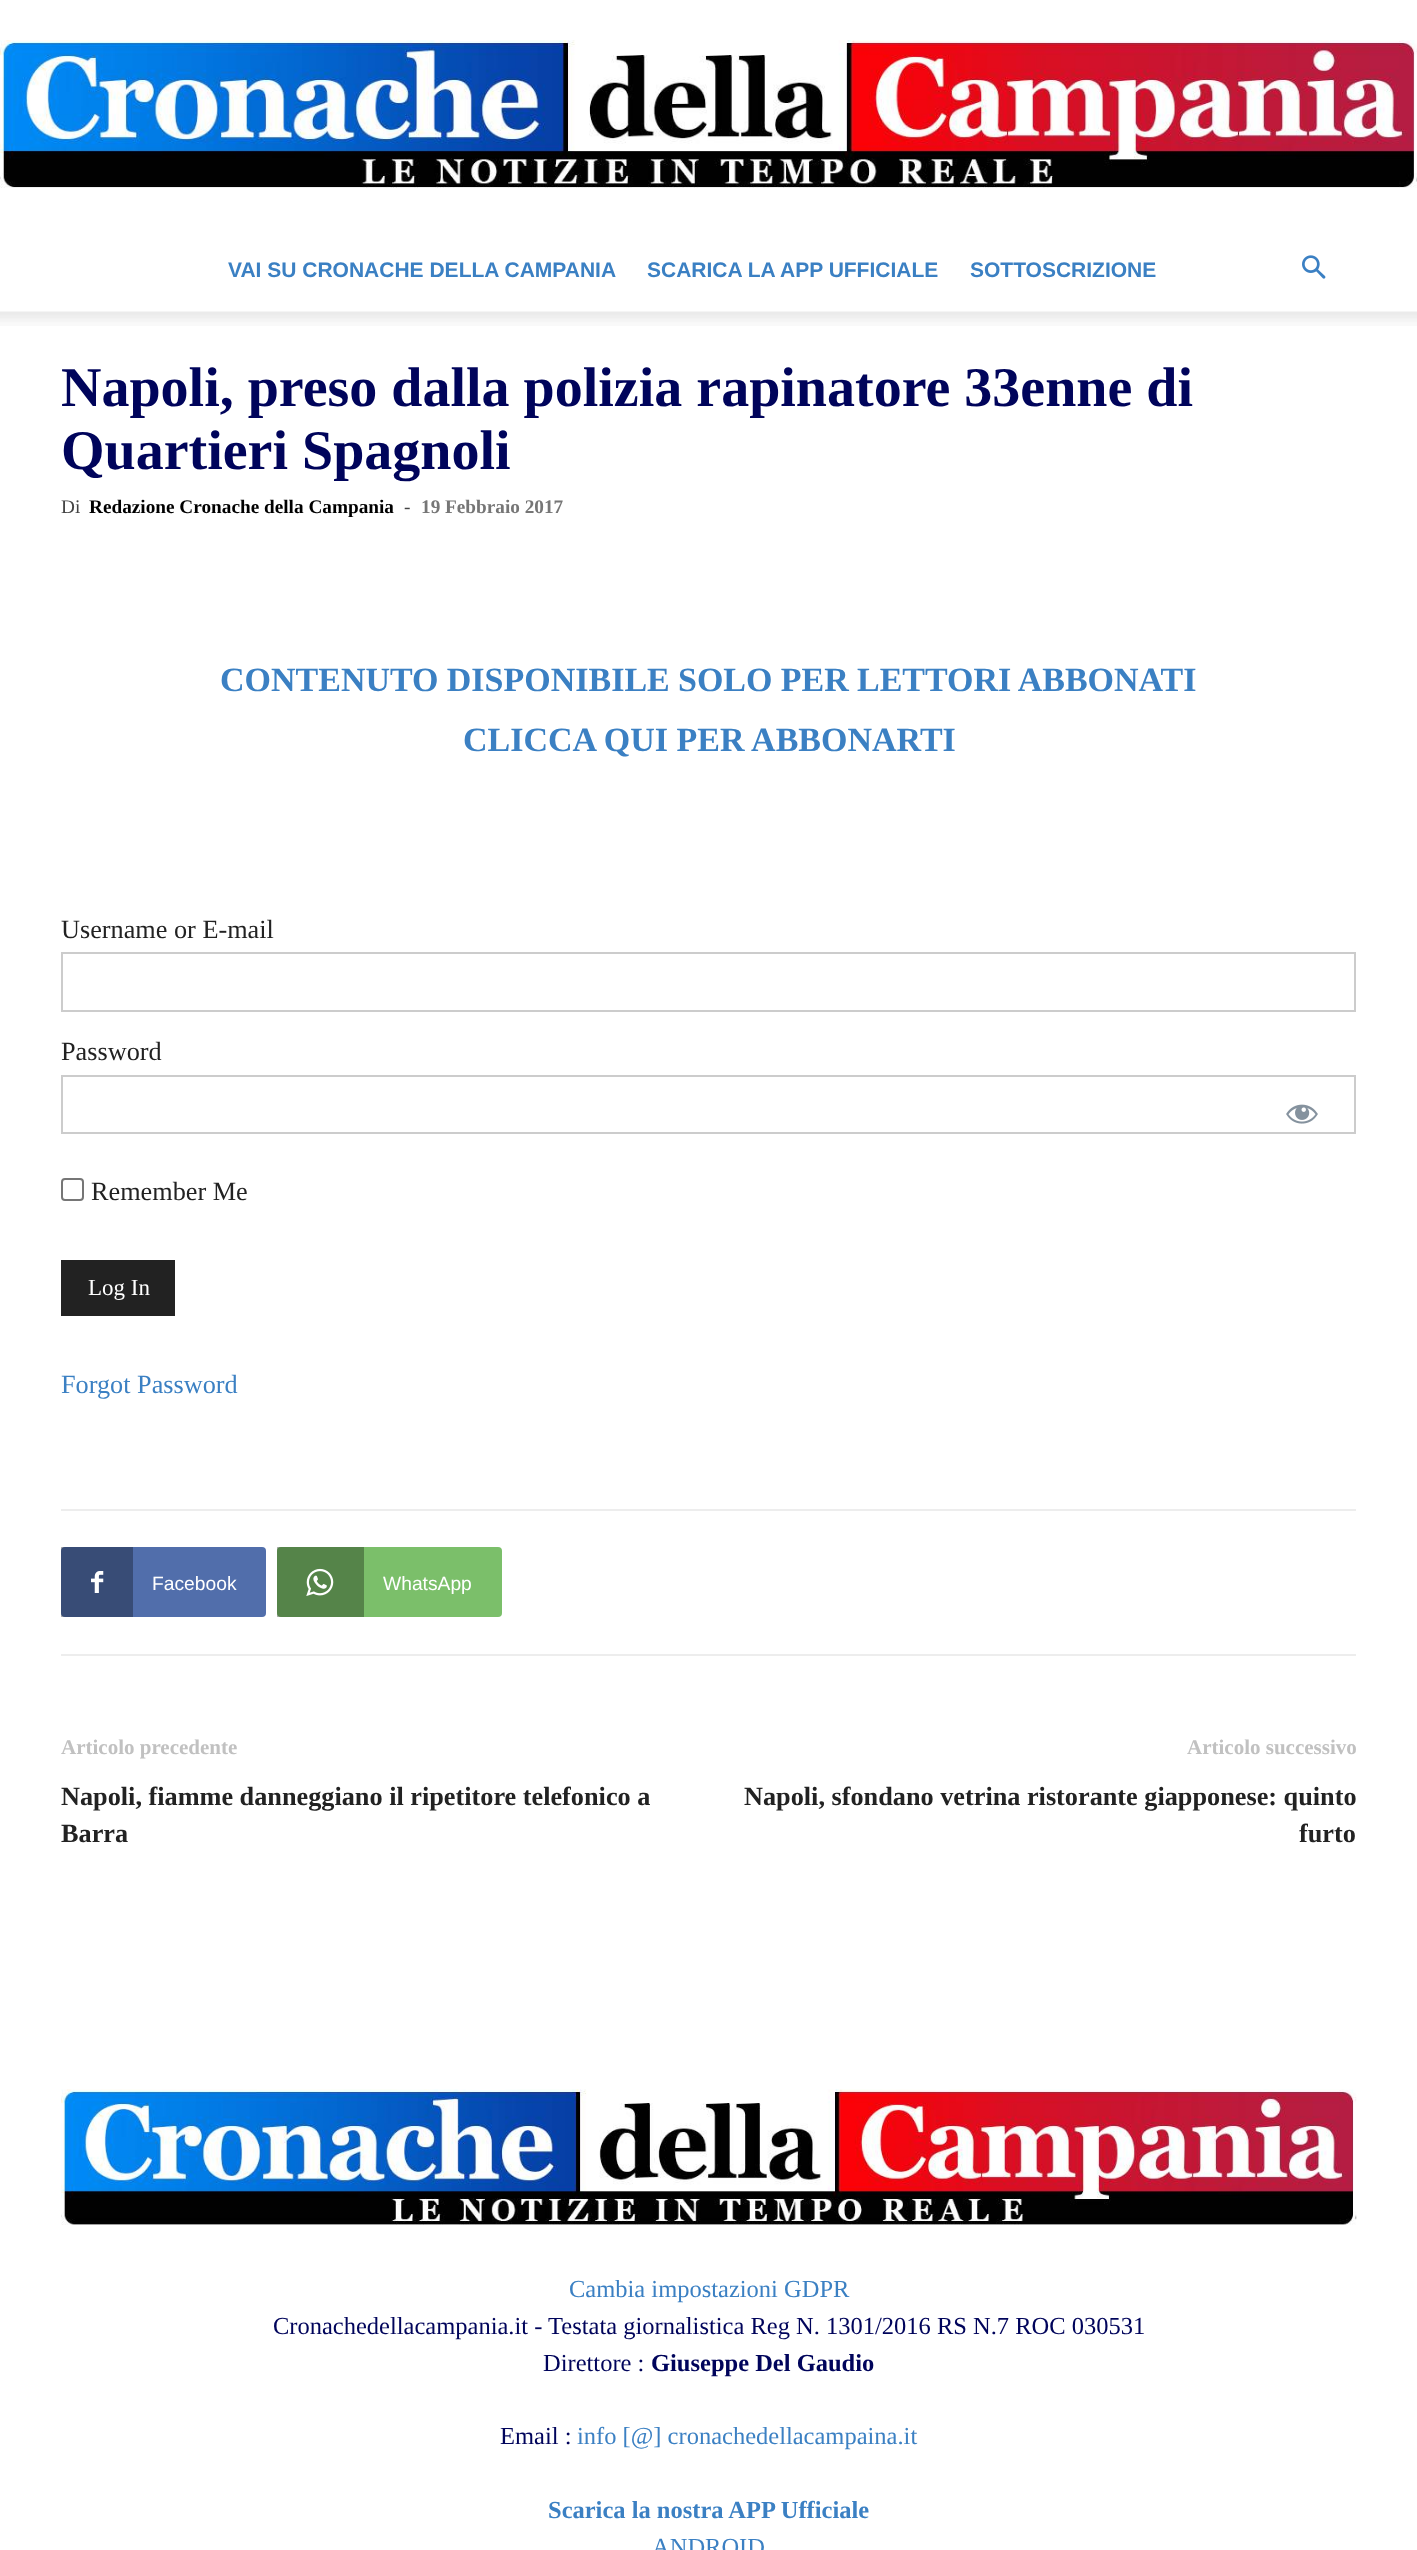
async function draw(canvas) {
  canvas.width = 1417;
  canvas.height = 2550;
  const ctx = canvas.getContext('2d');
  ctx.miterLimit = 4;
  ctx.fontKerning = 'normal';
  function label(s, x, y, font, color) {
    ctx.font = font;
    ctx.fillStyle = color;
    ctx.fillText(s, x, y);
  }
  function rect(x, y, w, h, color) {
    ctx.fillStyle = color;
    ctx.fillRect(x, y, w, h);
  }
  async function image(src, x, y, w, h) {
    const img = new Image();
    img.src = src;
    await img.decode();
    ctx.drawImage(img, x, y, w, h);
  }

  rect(0, 0, 1417, 2550, '#fff');
  await image('assets/img1.png', 0, 40, 1417, 148);
  label('VAI SU CRONACHE DELLA CAMPANIA', 228, 277, 'bold 21px Liberation Sans', '#3b80c3');
  label('SCARICA LA APP UFFICIALE', 647, 277, 'bold 21px Liberation Sans', '#3b80c3');
  label('SOTTOSCRIZIONE', 970, 277, 'bold 21px Liberation Sans', '#3b80c3');
  await image('assets/img2.png', 1302, 255, 24, 24);
  await image('assets/img3.png', 0, 311, 1417, 15);
  rect(277, 1547, 4, 70, '#b0b0b0');
  rect(61, 1547, 4, 70, '#b0b0b0');
  label('Napoli, preso dalla polizia rapinatore 33enne di', 61, 406, 'bold 56px Liberation Serif', '#00045b');
  label('Quartieri Spagnoli', 61, 469, 'bold 56px Liberation Serif', '#00045b');
  label('Di', 61, 513, '19.25px Liberation Serif', '#444');
  label('Redazione Cronache della Campania', 89, 513, 'bold 19.25px Liberation Serif', '#000');
  label('-', 404, 513, '19.25px Liberation Serif', '#444');
  label('19 Febbraio 2017', 421, 513, 'bold 19.25px Liberation Serif', '#767676');
  ctx.wordSpacing = '-0.25px';
  label('CONTENUTO DISPONIBILE SOLO PER LETTORI ABBONATI', 220, 691, 'bold 34px Liberation Serif', '#3b80c3');
  ctx.wordSpacing = '0px';
  label('CLICCA QUI PER ABBONARTI', 463, 751, 'bold 34px Liberation Serif', '#3b80c3');
  label('Username or E-mail', 61, 938, '26.25px Liberation Serif', '#222');
  ctx.strokeStyle = '#ccc';
  ctx.lineWidth = 2;
  ctx.strokeRect(62, 953, 1293, 58);
  label('Password', 61, 1060, '26.25px Liberation Serif', '#222');
  ctx.strokeRect(62, 1076, 1293, 57);
  await image('assets/img4.png', 1286, 1104, 32, 20);
  ctx.beginPath();
  ctx.roundRect(62, 1179, 21, 21, 3);
  ctx.strokeStyle = '#767676';
  ctx.stroke();
  label('Remember Me', 91, 1200, '26.25px Liberation Serif', '#222');
  rect(61, 1260, 114, 56, '#222');
  label('Log In', 88, 1295, '23px Liberation Serif', '#fff');
  label('Forgot Password', 61, 1393, '26.25px Liberation Serif', '#3b80c3');
  rect(61, 1509, 1295, 2, '#ededed');
  rect(61, 1654, 1295, 2, '#ededed');
  ctx.fillStyle = '#516eab';
  ctx.beginPath();
  ctx.roundRect(123, 1547, 143, 70, [0, 4, 4, 0]);
  ctx.fill();
  ctx.fillStyle = '#384c76';
  ctx.beginPath();
  ctx.roundRect(61, 1547, 72, 70, [4, 0, 0, 4]);
  ctx.fill();
  await image('assets/img5.png', 91, 1571, 13, 22);
  label('Facebook', 152, 1590, '19.25px Liberation Sans', '#fff');
  ctx.fillStyle = '#7bbf6a';
  ctx.beginPath();
  ctx.roundRect(354, 1547, 148, 70, [0, 4, 4, 0]);
  ctx.fill();
  ctx.fillStyle = '#558449';
  ctx.beginPath();
  ctx.roundRect(277, 1547, 87, 70, [4, 0, 0, 4]);
  ctx.fill();
  await image('assets/img6.png', 306, 1568, 28, 28);
  label('WhatsApp', 383, 1590, '19.25px Liberation Sans', '#fff');
  label('Articolo precedente', 61, 1754, 'bold 21px Liberation Serif', '#c1c1c1');
  label('Napoli, fiamme danneggiano il ripetitore telefonico a', 61, 1805, 'bold 26.25px Liberation Serif', '#222');
  label('Barra', 61, 1842, 'bold 26.25px Liberation Serif', '#222');
  label('Articolo successivo', 1187, 1754, 'bold 21px Liberation Serif', '#c1c1c1');
  label('Napoli, sfondano vetrina ristorante giapponese: quinto', 744, 1805, 'bold 26.25px Liberation Serif', '#222');
  label('furto', 1299, 1842, 'bold 26.25px Liberation Serif', '#222');
  await image('assets/img7.png', 61, 2089, 1296, 136);
  label('Cambia impostazioni GDPR', 569, 2297, '24.5px Liberation Serif', '#3b80c3');
  label('Cronachedellacampania.it - Testata giornalistica Reg N. 1301/2016 RS N.7 ROC 030531', 273, 2334, '24.5px Liberation Serif', '#00045b');
  label('Direttore :', 543, 2371, '24.5px Liberation Serif', '#00045b');
  label('Giuseppe Del Gaudio', 651, 2371, 'bold 24.5px Liberation Serif', '#00045b');
  label('Email :', 500, 2444, '24.5px Liberation Serif', '#00045b');
  label('info [@] cronachedellacampaina.it', 577, 2444, '24.5px Liberation Serif', '#3b80c3');
  label('Scarica la nostra APP Ufficiale', 548, 2518, 'bold 24.5px Liberation Serif', '#3b80c3');
  label('ANDROID', 652, 2555, '24.5px Liberation Serif', '#3b80c3');
}

draw(document.querySelector('canvas'));
